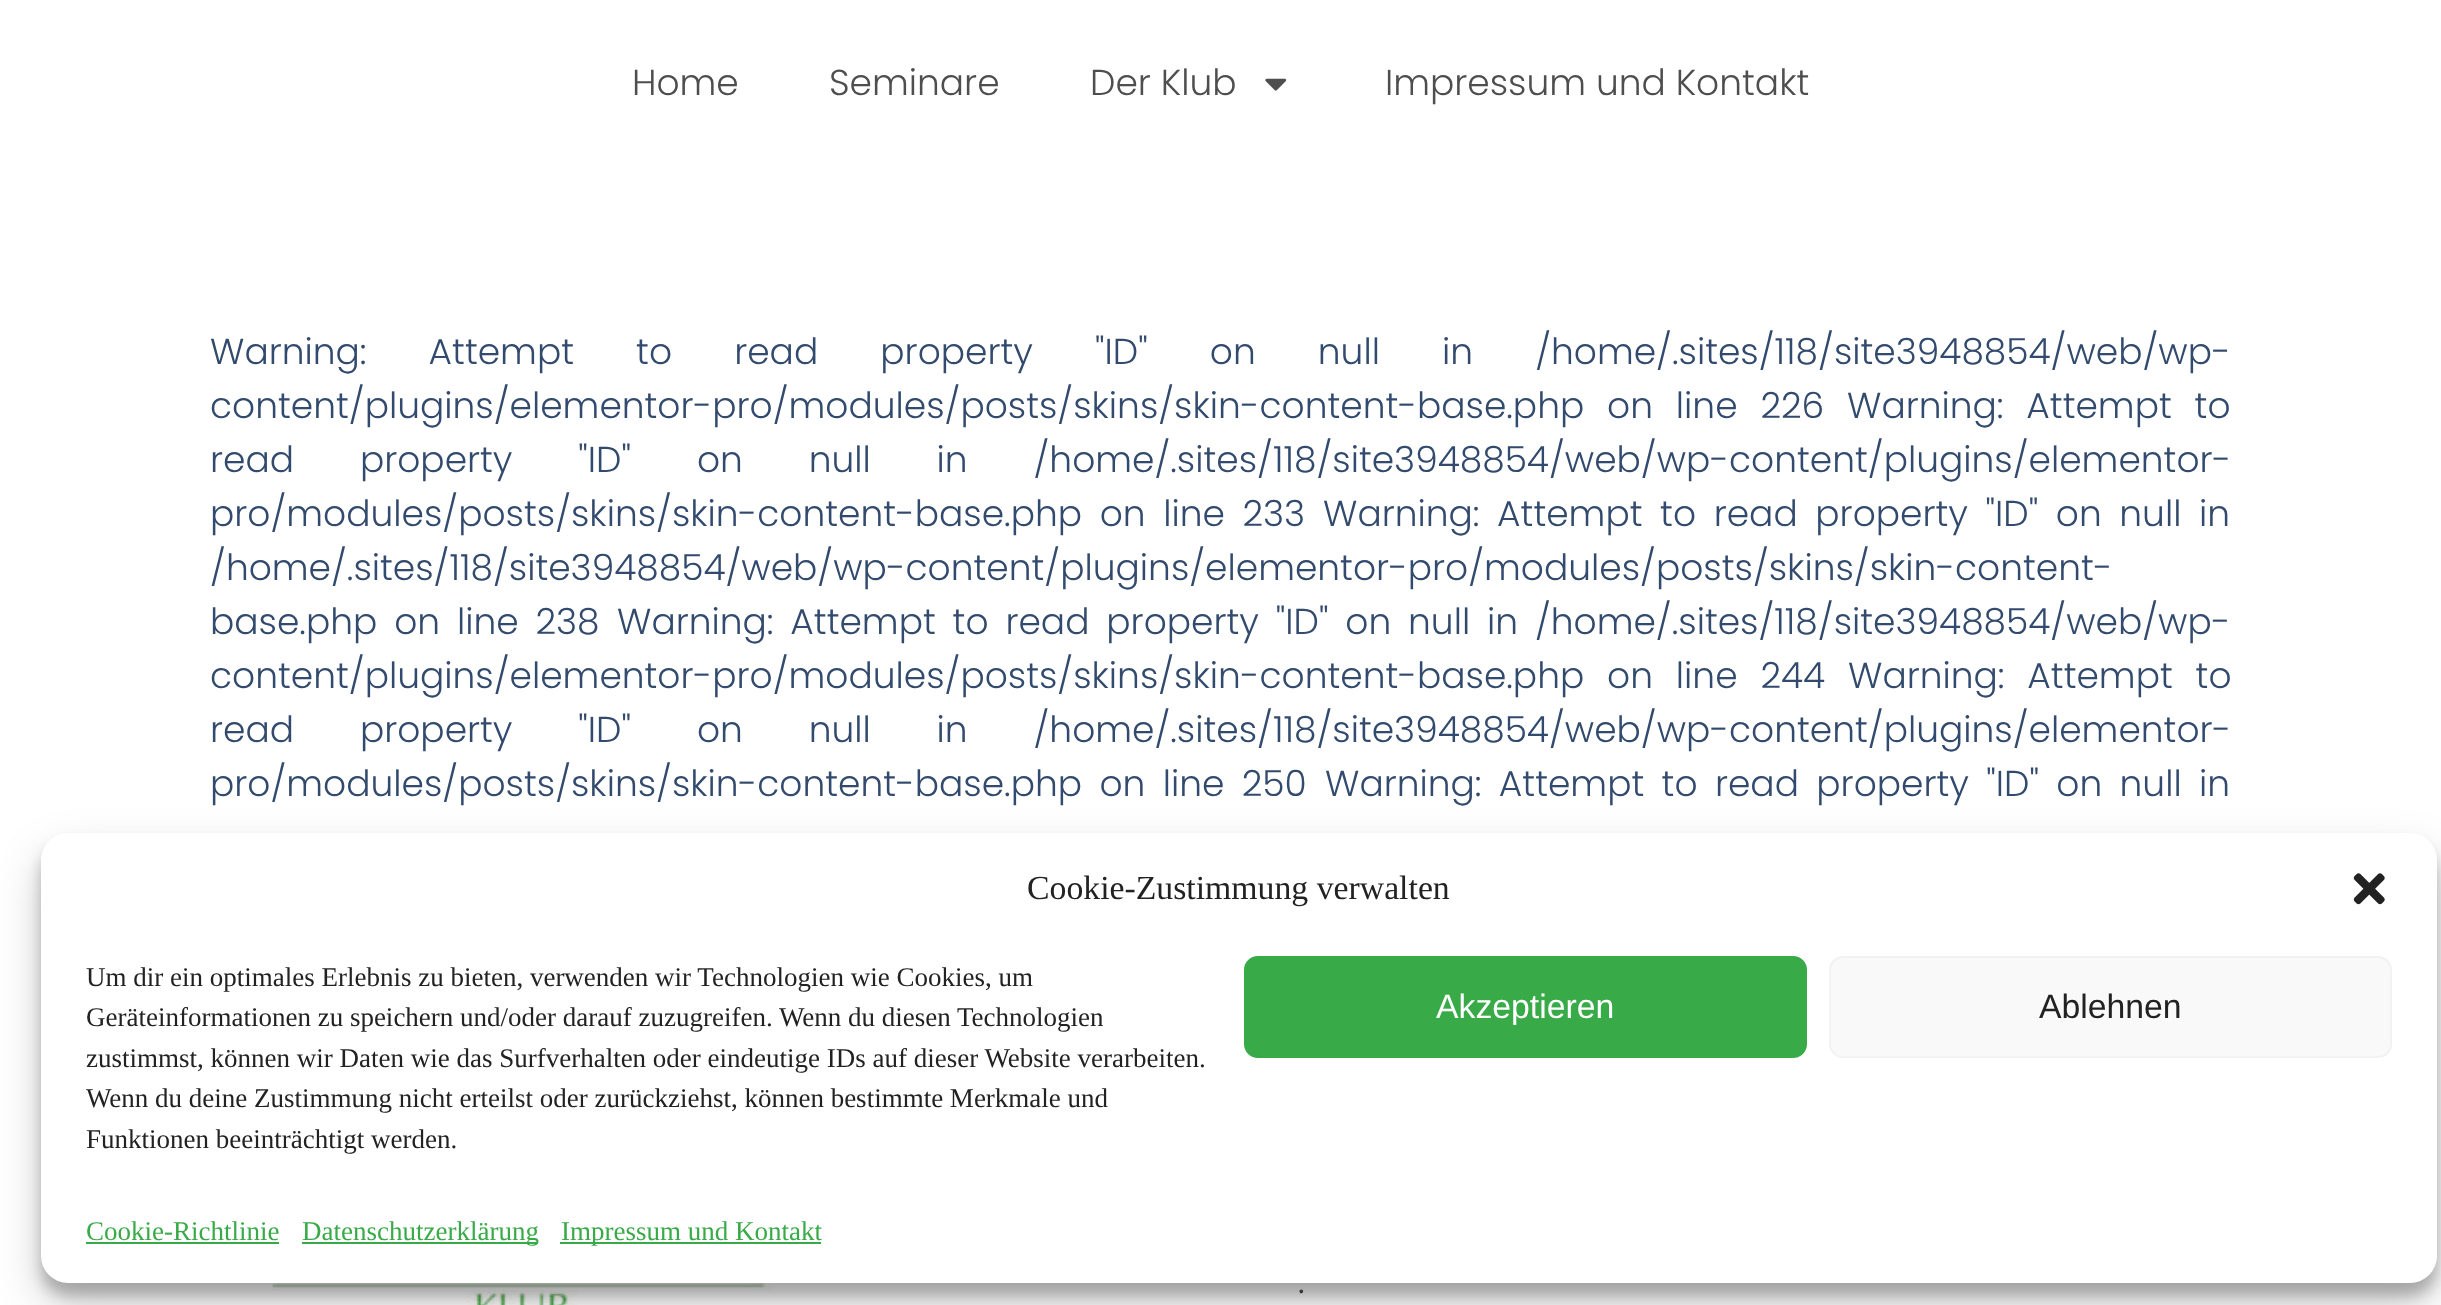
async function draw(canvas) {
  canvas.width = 2441;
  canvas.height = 1305;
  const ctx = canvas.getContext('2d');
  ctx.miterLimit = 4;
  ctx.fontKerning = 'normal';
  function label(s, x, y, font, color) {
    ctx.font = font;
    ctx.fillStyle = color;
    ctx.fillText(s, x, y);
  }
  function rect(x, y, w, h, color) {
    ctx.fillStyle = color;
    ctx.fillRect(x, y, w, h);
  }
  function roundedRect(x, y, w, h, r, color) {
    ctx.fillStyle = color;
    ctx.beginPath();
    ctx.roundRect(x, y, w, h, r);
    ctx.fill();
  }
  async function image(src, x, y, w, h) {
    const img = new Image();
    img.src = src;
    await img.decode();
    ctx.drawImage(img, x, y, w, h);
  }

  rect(0, 0, 2441, 1305, '#fff');
  label('Home', 632, 95, '300 36px Poppins', '#4e4e4e');
  label('Seminare', 829, 95, '300 36px Poppins', '#4e4e4e');
  label('Der Klub', 1090, 95, '300 36px Poppins', '#4e4e4e');
  await image('assets/img1.png', 1265, 78, 22, 13);
  label('Impressum und Kontakt', 1385, 95, '300 36px Poppins', '#4e4e4e');
  ctx.wordSpacing = '52.25px';
  label('Warning: Attempt to read property "ID" on null in /home/.sites/118/site3948854/web/wp-', 210, 364, '300 36px Poppins', '#324a6d');
  ctx.wordSpacing = '13px';
  label('content/plugins/elementor-pro/modules/posts/skins/skin-content-base.php on line 226', 210, 418, '300 36px Poppins', '#324a6d');
  label('Warning: Attempt to', 1847, 418, '300 36px Poppins', '#324a6d');
  ctx.wordSpacing = '56px';
  label('read property "ID" on null in /home/.sites/118/site3948854/web/wp-content/plugins/elementor-', 210, 472, '300 36px Poppins', '#324a6d');
  ctx.wordSpacing = '7.75px';
  label('pro/modules/posts/skins/skin-content-base.php on line 233', 210, 526, '300 36px Poppins', '#324a6d');
  label('Warning: Attempt to read property "ID" on null in', 1323, 526, '300 36px Poppins', '#324a6d');
  ctx.wordSpacing = '0px';
  label('/home/.sites/118/site3948854/web/wp-content/plugins/elementor-pro/modules/posts/skins/skin-content-', 210, 580, '300 36px Poppins', '#324a6d');
  ctx.wordSpacing = '7px';
  label('base.php on line 238', 210, 634, '300 36px Poppins', '#324a6d');
  label('Warning: Attempt to read property "ID" on null in /home/.sites/118/site3948854/web/wp-', 617, 634, '300 36px Poppins', '#324a6d');
  ctx.wordSpacing = '13px';
  label('content/plugins/elementor-pro/modules/posts/skins/skin-content-base.php on line 244', 210, 688, '300 36px Poppins', '#324a6d');
  label('Warning: Attempt to', 1848, 688, '300 36px Poppins', '#324a6d');
  ctx.wordSpacing = '56px';
  label('read property "ID" on null in /home/.sites/118/site3948854/web/wp-content/plugins/elementor-', 210, 742, '300 36px Poppins', '#324a6d');
  ctx.wordSpacing = '7.5px';
  label('pro/modules/posts/skins/skin-content-base.php on line 250', 210, 796, '300 36px Poppins', '#324a6d');
  label('Warning: Attempt to read property "ID" on null in', 1325, 796, '300 36px Poppins', '#324a6d');
  await image('assets/img2.png', 272, 1283, 499, 22);
  ctx.wordSpacing = '0px';
  label('.', 1298, 1293, '300 36px Poppins', '#4e4e4e');
  ctx.fillStyle = '#0000003b';
  ctx.filter = 'blur(7px)';
  ctx.beginPath();
  ctx.roundRect(41, 846, 2396, 450, 27);
  ctx.fill();
  ctx.filter = 'none';
  ctx.fillStyle = '#00000030';
  ctx.filter = 'blur(22.5px)';
  ctx.beginPath();
  ctx.roundRect(41, 855, 2396, 450, 27);
  ctx.fill();
  ctx.filter = 'none';
  roundedRect(41, 833, 2396, 450, 27, '#fff');
  label('Cookie-Zustimmung verwalten', 1027, 899, '33.75px Liberation Serif', '#222');
  await image('assets/img3.png', 2353, 873, 32, 32);
  label('Um dir ein optimales Erlebnis zu bieten, verwenden wir Technologien wie Cookies, um', 86, 986, '27px Liberation Serif', '#222');
  label('Geräteinformationen zu speichern und/oder darauf zuzugreifen. Wenn du diesen Technologien', 86, 1026, '27px Liberation Serif', '#222');
  label('zustimmst, können wir Daten wie das Surfverhalten oder eindeutige IDs auf dieser Website verarbeiten.', 86, 1067, '27px Liberation Serif', '#222');
  label('Wenn du deine Zustimmung nicht erteilst oder zurückziehst, können bestimmte Merkmale und', 86, 1107, '27px Liberation Serif', '#222');
  label('Funktionen beeinträchtigt werden.', 86, 1148, '27px Liberation Serif', '#222');
  ctx.fillStyle = '#38aa47';
  ctx.beginPath();
  ctx.roundRect(1245, 957, 561, 100, 13);
  ctx.fill();
  ctx.strokeStyle = '#38aa47';
  ctx.lineWidth = 2;
  ctx.stroke();
  label('Akzeptieren', 1436, 1018, '33.75px Liberation Sans', '#fff');
  ctx.fillStyle = '#f9f9f9';
  ctx.beginPath();
  ctx.roundRect(1830, 957, 561, 100, 13);
  ctx.fill();
  ctx.strokeStyle = '#f2f2f2';
  ctx.stroke();
  label('Ablehnen', 2039, 1018, '33.75px Liberation Sans', '#222');
  label('Cookie-Richtlinie', 86, 1240, '27px Liberation Serif', '#38aa47');
  rect(86, 1242, 193, 2, '#38aa47');
  rect(302, 1242, 236, 2, '#38aa47');
  label('Datenschutzerklärung', 302, 1240, '27px Liberation Serif', '#38aa47');
  rect(560, 1242, 261, 2, '#38aa47');
  label('Impressum und Kontakt', 561, 1240, '27px Liberation Serif', '#38aa47');
}

draw(document.querySelector('canvas'));
